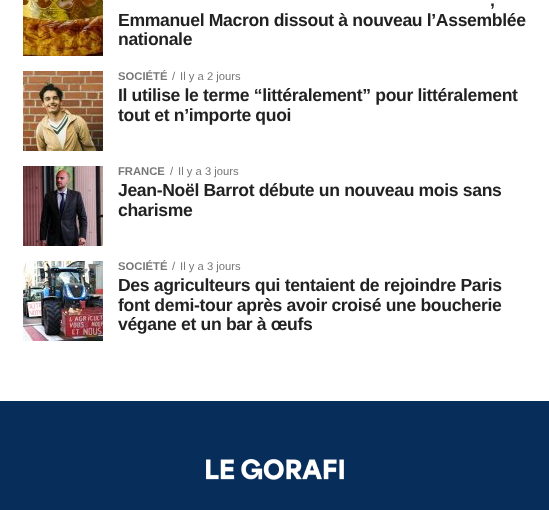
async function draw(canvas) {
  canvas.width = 549;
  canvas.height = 510;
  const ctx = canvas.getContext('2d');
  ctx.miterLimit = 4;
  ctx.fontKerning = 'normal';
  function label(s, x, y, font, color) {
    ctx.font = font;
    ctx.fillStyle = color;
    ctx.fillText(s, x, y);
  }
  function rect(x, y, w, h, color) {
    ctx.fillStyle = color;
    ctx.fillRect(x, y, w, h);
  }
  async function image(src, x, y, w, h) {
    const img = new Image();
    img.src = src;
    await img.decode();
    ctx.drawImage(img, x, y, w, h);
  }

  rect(0, 0, 549, 510, '#fff');
  await image('assets/img1.png', 23, 0, 80, 56);
  ctx.letterSpacing = '-0.35px';
  label(',', 490, 6, 'bold 17.6px Liberation Sans', '#222');
  label('Emmanuel Macron dissout à nouveau l’Assemblée', 118, 26, 'bold 17.6px Liberation Sans', '#222');
  label('nationale', 118, 45, 'bold 17.6px Liberation Sans', '#222');
  await image('assets/img2.png', 23, 71, 80, 80);
  ctx.letterSpacing = '0px';
  label('SOCIÉTÉ', 118, 80, 'bold 11.25px Liberation Sans', '#777');
  label('/', 172, 80, '11.25px Liberation Sans', '#777');
  label('Il y a 2 jours', 180, 80, '11.25px Liberation Sans', '#777');
  ctx.letterSpacing = '-0.35px';
  label('Il utilise le terme “littéralement” pour littéralement', 118, 101, 'bold 17.6px Liberation Sans', '#222');
  label('tout et n’importe quoi', 118, 121, 'bold 17.6px Liberation Sans', '#222');
  await image('assets/img3.png', 23, 166, 80, 80);
  ctx.letterSpacing = '0px';
  label('FRANCE', 118, 175, 'bold 11.25px Liberation Sans', '#777');
  label('/', 170, 175, '11.25px Liberation Sans', '#777');
  label('Il y a 3 jours', 178, 175, '11.25px Liberation Sans', '#777');
  ctx.letterSpacing = '-0.35px';
  label('Jean-Noël Barrot débute un nouveau mois sans', 118, 196, 'bold 17.6px Liberation Sans', '#222');
  label('charisme', 118, 216, 'bold 17.6px Liberation Sans', '#222');
  await image('assets/img4.png', 23, 261, 80, 80);
  ctx.letterSpacing = '0px';
  label('SOCIÉTÉ', 118, 270, 'bold 11.25px Liberation Sans', '#777');
  label('/', 172, 270, '11.25px Liberation Sans', '#777');
  label('Il y a 3 jours', 180, 270, '11.25px Liberation Sans', '#777');
  ctx.letterSpacing = '-0.35px';
  label('Des agriculteurs qui tentaient de rejoindre Paris', 118, 291, 'bold 17.6px Liberation Sans', '#222');
  label('font demi-tour après avoir croisé une boucherie', 118, 311, 'bold 17.6px Liberation Sans', '#222');
  label('végane et un bar à œufs', 118, 330, 'bold 17.6px Liberation Sans', '#222');
  rect(0, 401, 549, 109, '#072d5b');
  await image('assets/img5.png', 206, 459, 138, 21);
}

draw(document.querySelector('canvas'));
